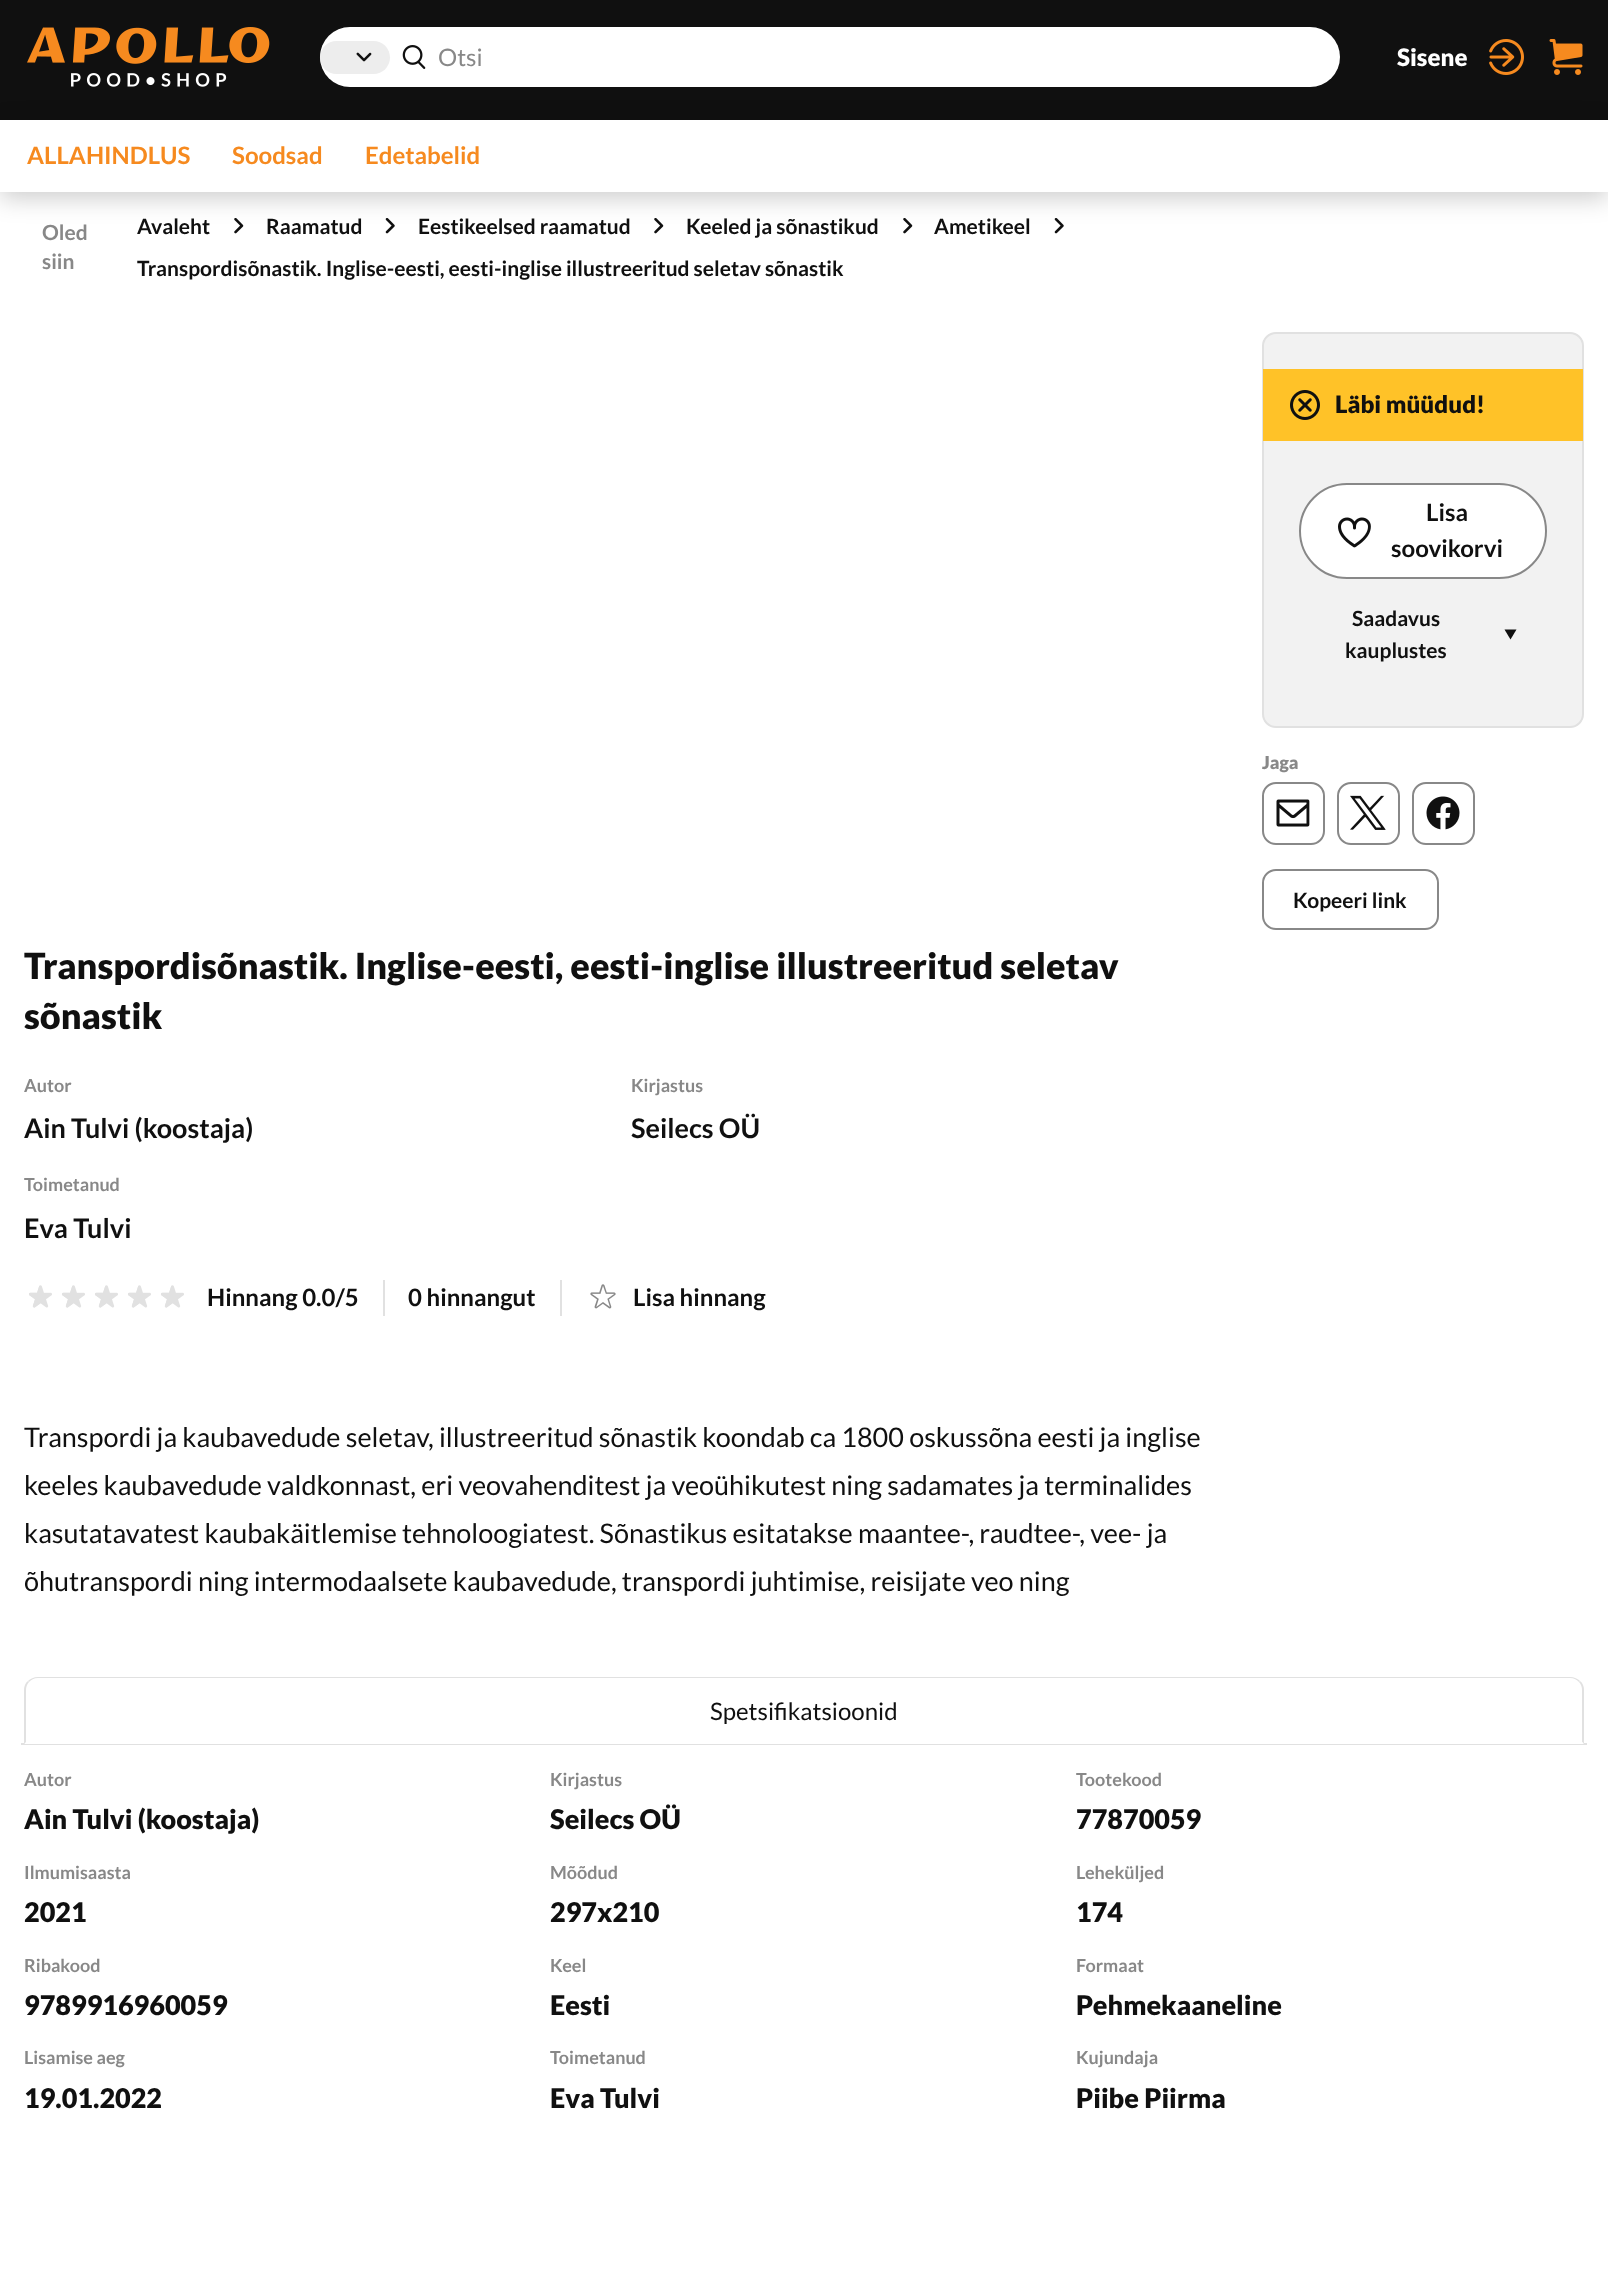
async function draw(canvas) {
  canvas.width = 1608;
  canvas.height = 2288;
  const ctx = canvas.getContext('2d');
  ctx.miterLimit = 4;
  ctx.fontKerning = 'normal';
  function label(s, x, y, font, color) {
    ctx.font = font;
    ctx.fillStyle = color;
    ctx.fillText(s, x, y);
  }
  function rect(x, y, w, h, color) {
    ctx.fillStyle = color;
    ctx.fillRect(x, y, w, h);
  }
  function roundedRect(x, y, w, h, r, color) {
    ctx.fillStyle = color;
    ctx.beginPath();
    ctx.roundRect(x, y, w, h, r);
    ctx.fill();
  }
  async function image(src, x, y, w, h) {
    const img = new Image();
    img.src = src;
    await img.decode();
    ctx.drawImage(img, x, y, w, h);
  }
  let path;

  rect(0, 0, 1608, 2288, '#fff');
  rect(0, 0, 1608, 120, '#101010');
  await image('assets/img1.png', 27, 27, 243, 60);
  roundedRect(320, 27, 1020, 60, 30, '#fff');
  roundedRect(320, 41, 70, 33, 16.5, '#ededed');
  await image('assets/img2.png', 356, 52, 16, 10);
  await image('assets/img3.png', 402, 45, 24, 24);
  label('Otsi', 438, 66, '24px Lato', '#888');
  label('Sisene', 1397, 66, '900 24px Lato', '#fff');
  await image('assets/img4.png', 1489, 39, 35, 36);
  await image('assets/img5.png', 1549, 39, 34, 36);
  await image('assets/img6.png', 234, 218, 10, 16);
  await image('assets/img7.png', 385, 218, 10, 16);
  await image('assets/img6.png', 654, 218, 10, 16);
  await image('assets/img6.png', 903, 218, 10, 16);
  await image('assets/img7.png', 1054, 218, 10, 16);
  ctx.fillStyle = '#00000033';
  ctx.filter = 'blur(12px)';
  ctx.beginPath();
  ctx.rect(0, 126, 1608, 72);
  ctx.fill();
  ctx.filter = 'none';
  rect(0, 120, 1608, 72, '#fff');
  label('ALLAHINDLUS', 27, 164, 'bold 24px Lato', '#f68a1f');
  label('Soodsad', 232, 164, 'bold 24px Lato', '#f68a1f');
  label('Edetabelid', 365, 164, 'bold 24px Lato', '#f68a1f');
  label('Oled', 42, 240, 'bold 21px Lato', '#888');
  label('siin', 42, 269, 'bold 21px Lato', '#888');
  label('Avaleht', 137, 234, 'bold 21px Lato', '#101010');
  label('Raamatud', 266, 234, 'bold 21px Lato', '#101010');
  label('Eestikeelsed raamatud', 418, 234, 'bold 21px Lato', '#101010');
  label('Keeled ja sõnastikud', 686, 234, 'bold 21px Lato', '#101010');
  label('Ametikeel', 934, 234, 'bold 21px Lato', '#101010');
  label('Transpordisõnastik. Inglise-eesti, eesti-inglise illustreeritud seletav sõnastik', 137, 276, 'bold 21px Lato', '#101010');
  ctx.fillStyle = '#f2f2f2';
  ctx.beginPath();
  ctx.roundRect(1263, 333, 320, 394, 13);
  ctx.fill();
  ctx.strokeStyle = '#e1e1e1';
  ctx.lineWidth = 2;
  ctx.stroke();
  rect(1263, 369, 320, 72, '#ffc228');
  await image('assets/img8.png', 1290, 390, 30, 30);
  label('Läbi müüdud!', 1335, 413, '900 24px Lato', '#101010');
  ctx.fillStyle = '#fff';
  ctx.beginPath();
  ctx.roundRect(1300, 484, 246, 94, 47);
  ctx.fill();
  ctx.strokeStyle = '#888';
  ctx.stroke();
  await image('assets/img9.png', 1338, 517, 33, 31);
  label('Lisa', 1426, 521, 'bold 24px Lato', '#101010');
  label('soovikorvi', 1391, 557, 'bold 24px Lato', '#101010');
  label('Saadavus', 1352, 626, 'bold 21px Lato', '#101010');
  label('kauplustes', 1345, 658, 'bold 21px Lato', '#101010');
  path = new Path2D('M1510.5 639.5L1504.5 629.5H1516.5Z');
  ctx.fill(path);
  label('Jaga', 1262, 769, '900 18px Lato', '#888');
  ctx.beginPath();
  ctx.roundRect(1263, 783, 61, 61, 13);
  ctx.stroke();
  await image('assets/img10.png', 1276, 799, 34, 28);
  ctx.beginPath();
  ctx.roundRect(1338, 783, 61, 61, 13);
  ctx.stroke();
  await image('assets/img11.png', 1350, 795, 36, 35);
  ctx.beginPath();
  ctx.roundRect(1413, 783, 61, 61, 13);
  ctx.stroke();
  await image('assets/img12.png', 1426, 796, 34, 34);
  ctx.beginPath();
  ctx.roundRect(1263, 870, 175, 59, 13);
  ctx.stroke();
  label('Kopeeri link', 1293, 908, 'bold 21px Lato', '#101010');
  label('Transpordisõnastik. Inglise-eesti, eesti-inglise illustreeritud seletav', 24, 979, '900 36px Lato', '#101010');
  label('sõnastik', 24, 1029, '900 36px Lato', '#101010');
  label('Autor', 24, 1092, 'bold 18px Lato', '#888');
  label('Ain Tulvi (koostaja)', 24, 1138, 'bold 27px Lato', '#101010');
  label('Kirjastus', 631, 1092, 'bold 18px Lato', '#888');
  label('Seilecs OÜ', 631, 1138, 'bold 27px Lato', '#101010');
  label('Toimetanud', 24, 1191, 'bold 18px Lato', '#888');
  label('Eva Tulvi', 24, 1238, 'bold 27px Lato', '#101010');
  rect(383, 1280, 2, 36, '#e1e1e1');
  await image('assets/img13.png', 29, 1285, 155, 23);
  label('Hinnang 0.0/5', 207, 1306, 'bold 24px Lato', '#101010');
  rect(560, 1280, 2, 36, '#e1e1e1');
  label('0 hinnangut', 408, 1306, 'bold 24px Lato', '#101010');
  await image('assets/img14.png', 590, 1284, 26, 25);
  label('Lisa hinnang', 633, 1306, 'bold 24px Lato', '#101010');
  label('Transpordi ja kaubavedude seletav, illustreeritud sõnastik koondab ca 1800 oskussõna eesti ja inglise', 24, 1447, '27px Lato', '#101010');
  label('keeles kaubavedude valdkonnast, eri veovahenditest ja veoühikutest ning sadamates ja terminalides', 24, 1495, '27px Lato', '#101010');
  label('kasutatavatest kaubakäitlemise tehnoloogiatest. Sõnastikus esitatakse maantee-, raudtee-, vee- ja', 24, 1543, '27px Lato', '#101010');
  label('õhutranspordi ning intermodaalsete kaubavedude, transpordi juhtimise, reisijate veo ning', 24, 1591, '27px Lato', '#101010');
  ctx.fillStyle = '#e1e1e1';
  path = new Path2D('M38 1677C34 1677 30 1679 28 1681L29 1682C31 1680 34 1678 38 1678H1570C1574 1678 1577 1680 1579 1682L1580 1681C1578 1679 1574 1677 1570 1677Z');
  ctx.fill(path);
  rect(21, 1743, 1566, 2, '#e1e1e1');
  path = new Path2D('M1584 1744V1690C1584 1687 1583 1683 1580 1681L1579 1682C1581 1684 1582 1687 1582 1690V1742Z');
  ctx.fill(path);
  ctx.fillStyle = '#fff';
  path = new Path2D('M1584 1744H24L26 1742V1743H1582V1742Z');
  ctx.fill(path);
  ctx.fillStyle = '#e1e1e1';
  path = new Path2D('M24 1690V1744L26 1742V1690C26 1687 27 1684 29 1682L28 1681C25 1683 24 1687 24 1690Z');
  ctx.fill(path);
  label('Spetsifikatsioonid', 710, 1720, '24px Lato', '#101010');
  label('Autor', 24, 1786, 'bold 18px Lato', '#888');
  label('Ain Tulvi (koostaja)', 24, 1829, '900 27px Lato', '#101010');
  label('Kirjastus', 550, 1786, 'bold 18px Lato', '#888');
  label('Seilecs OÜ', 550, 1829, '900 27px Lato', '#101010');
  label('Tootekood', 1076, 1786, 'bold 18px Lato', '#888');
  label('77870059', 1076, 1829, '900 27px Lato', '#101010');
  label('Ilmumisaasta', 24, 1879, 'bold 18px Lato', '#888');
  label('2021', 24, 1922, '900 27px Lato', '#101010');
  label('Mõõdud', 550, 1879, 'bold 18px Lato', '#888');
  label('297x210', 550, 1922, '900 27px Lato', '#101010');
  label('Leheküljed', 1076, 1879, 'bold 18px Lato', '#888');
  label('174', 1076, 1922, '900 27px Lato', '#101010');
  label('Ribakood', 24, 1972, 'bold 18px Lato', '#888');
  label('9789916960059', 24, 2015, '900 27px Lato', '#101010');
  label('Keel', 550, 1972, 'bold 18px Lato', '#888');
  label('Eesti', 550, 2015, '900 27px Lato', '#101010');
  label('Formaat', 1076, 1972, 'bold 18px Lato', '#888');
  label('Pehmekaaneline', 1076, 2015, '900 27px Lato', '#101010');
  label('Lisamise aeg', 24, 2064, 'bold 18px Lato', '#888');
  label('19.01.2022', 24, 2108, '900 27px Lato', '#101010');
  label('Toimetanud', 550, 2064, 'bold 18px Lato', '#888');
  label('Eva Tulvi', 550, 2108, '900 27px Lato', '#101010');
  label('Kujundaja', 1076, 2064, 'bold 18px Lato', '#888');
  label('Piibe Piirma', 1076, 2108, '900 27px Lato', '#101010');
}

draw(document.querySelector('canvas'));
